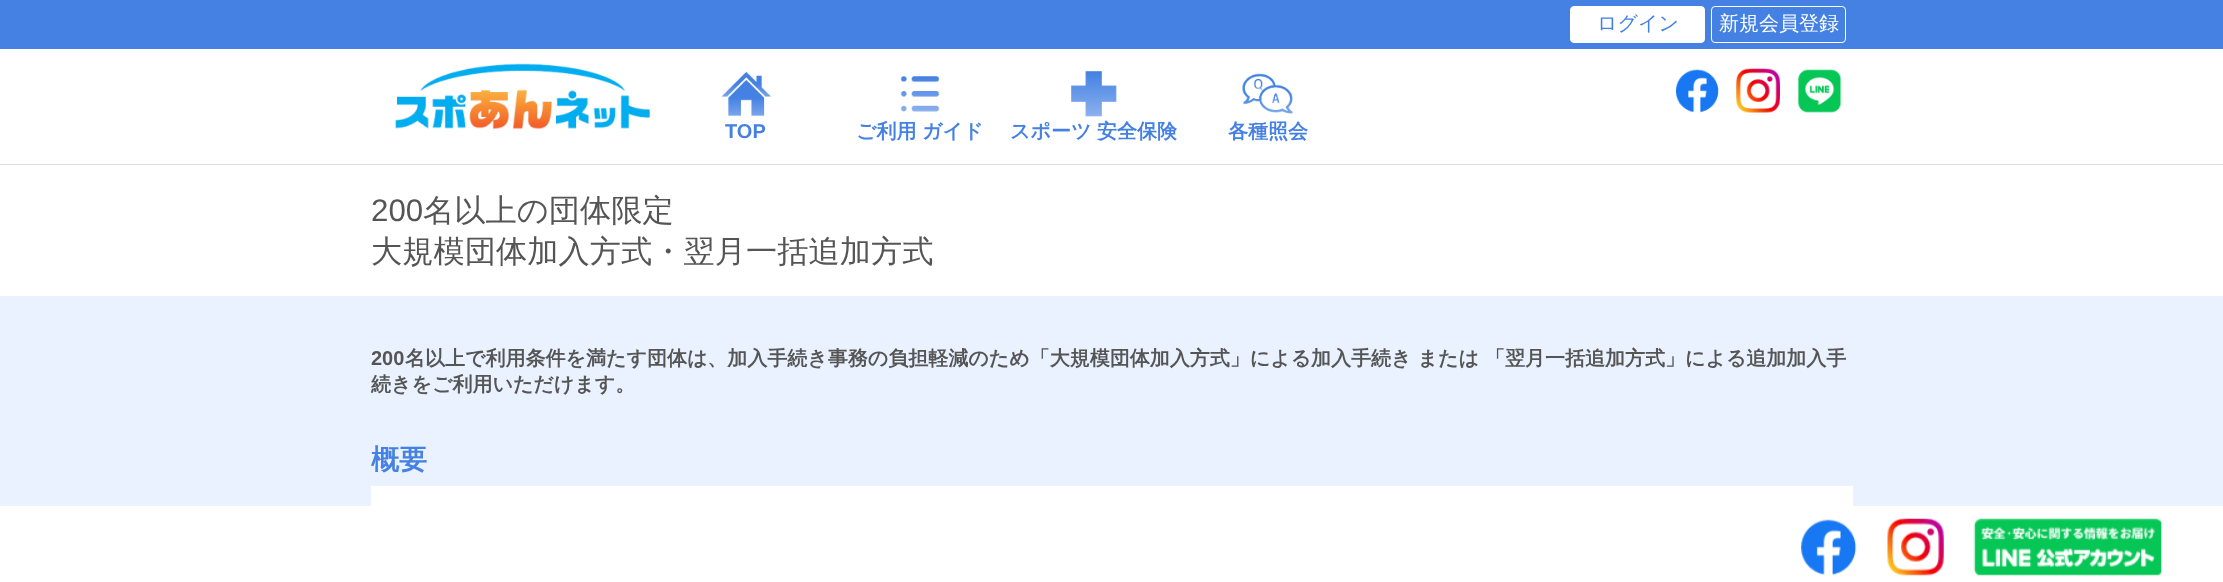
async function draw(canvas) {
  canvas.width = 2223;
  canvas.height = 582;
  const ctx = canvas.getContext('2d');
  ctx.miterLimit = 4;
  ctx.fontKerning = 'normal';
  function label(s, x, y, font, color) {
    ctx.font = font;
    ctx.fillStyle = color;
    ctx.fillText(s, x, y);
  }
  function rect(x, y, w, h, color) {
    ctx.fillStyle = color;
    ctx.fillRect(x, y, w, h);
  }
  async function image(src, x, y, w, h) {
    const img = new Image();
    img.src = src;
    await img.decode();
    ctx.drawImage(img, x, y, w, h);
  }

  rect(0, 0, 2223, 582, '#fff');
  rect(0, 0, 2223, 49, '#4481e2');
  ctx.fillStyle = '#fff';
  ctx.beginPath();
  ctx.roundRect(1570.5, 6.5, 134, 36, 3.5);
  ctx.fill();
  ctx.strokeStyle = '#fff';
  ctx.stroke();
  label('ログイン', 1597, 30, '500 20px WenQuanYi Zen Hei', '#4481e2');
  ctx.beginPath();
  ctx.roundRect(1711.5, 6.5, 134, 36, 3.5);
  ctx.stroke();
  label('新規会員登録', 1719, 30, '500 20px WenQuanYi Zen Hei', '#fff');
  rect(0, 164, 2223, 1, '#ddd');
  await image('assets/img1.png', 395, 63, 255, 67);
  await image('assets/img2.png', 1675, 69, 44, 44);
  await image('assets/img3.png', 1736, 68, 44, 45);
  await image('assets/img4.png', 1798, 69, 44, 44);
  await image('assets/img5.png', 721, 71, 50, 46);
  label('TOP', 725, 138, 'bold 20px Liberation Sans', '#4481e2');
  await image('assets/img6.png', 900, 76, 40, 36);
  label('ご利用', 856, 138, 'bold 20px WenQuanYi Zen Hei', '#4481e2');
  label('ガイド', 922, 138, 'bold 20px WenQuanYi Zen Hei', '#4481e2');
  await image('assets/img7.png', 1071, 71, 46, 46);
  label('スポーツ', 1010, 138, 'bold 20px WenQuanYi Zen Hei', '#4481e2');
  label('安全保険', 1097, 138, 'bold 20px WenQuanYi Zen Hei', '#4481e2');
  await image('assets/img8.png', 1242, 73, 51, 41);
  label('各種照会', 1228, 138, 'bold 20px WenQuanYi Zen Hei', '#4481e2');
  label('200', 371, 221, '31.25px Liberation Sans', '#555');
  label('名以上の団体限定', 423, 221, '500 31.25px WenQuanYi Zen Hei', '#555');
  label('大規模団体加入方式・翌月一括追加方式', 371, 262, '500 31.25px WenQuanYi Zen Hei', '#555');
  rect(0, 296, 2223, 210, '#eaf2ff');
  label('200', 371, 365, 'bold 20px Liberation Sans', '#555');
  label('名以上で利用条件を満たす団体は、加入手続き事務の負担軽減のため「大規模団体加入方式」による加入手続き または 「翌月一括追加方式」による追加加入手', 405, 365, 'bold 20px WenQuanYi Zen Hei', '#555');
  label('続きをご利用いただけます。', 371, 391, 'bold 20px WenQuanYi Zen Hei', '#555');
  label('概要', 371, 469, 'bold 28px WenQuanYi Zen Hei', '#4481e2');
  rect(371, 486, 1482, 20, '#fff');
  await image('assets/img9.png', 1801, 519, 56, 57);
  await image('assets/img10.png', 1887, 518, 57, 58);
  await image('assets/img11.png', 1973, 518, 189, 58);
}

draw(document.querySelector('canvas'));
